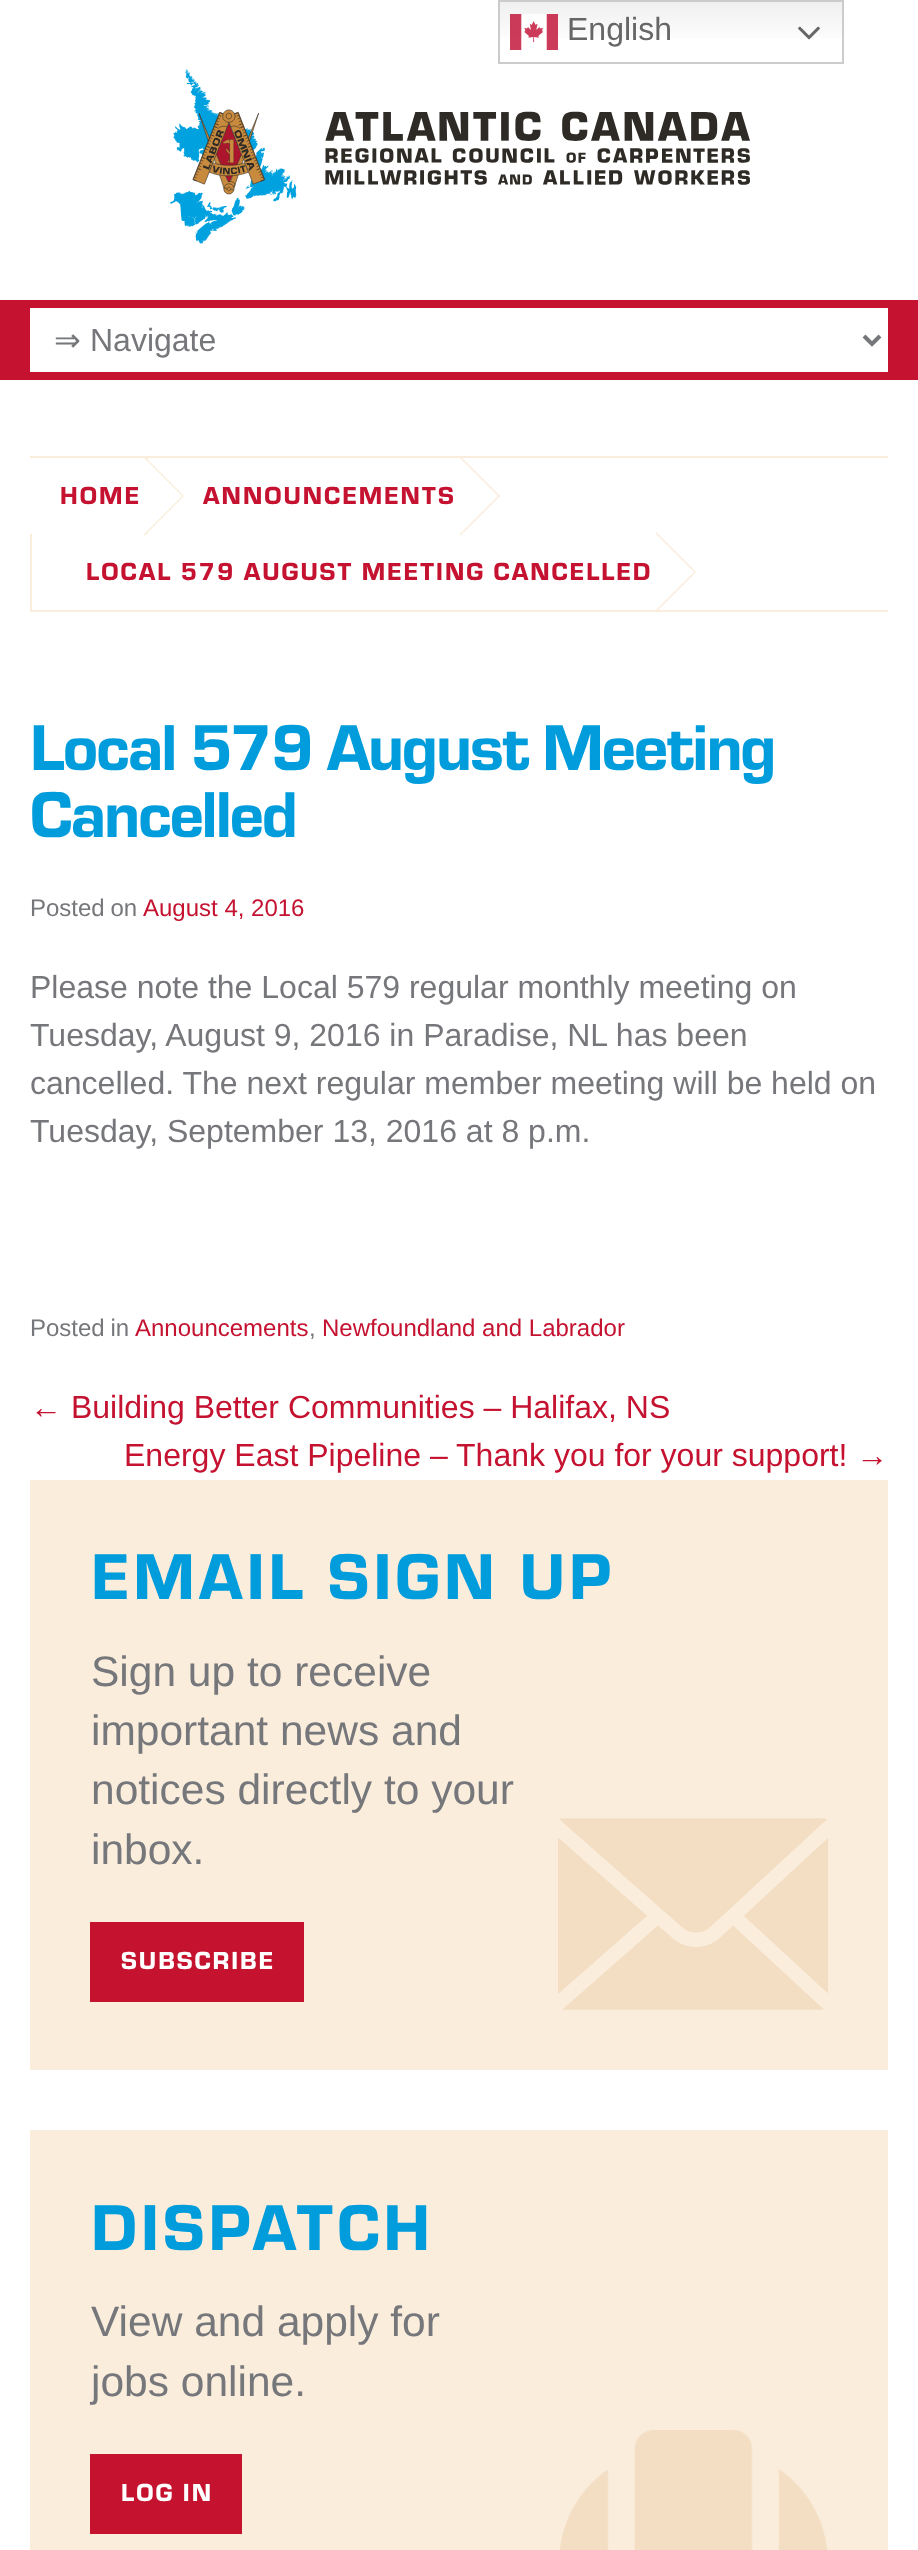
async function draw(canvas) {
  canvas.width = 918;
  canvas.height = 2550;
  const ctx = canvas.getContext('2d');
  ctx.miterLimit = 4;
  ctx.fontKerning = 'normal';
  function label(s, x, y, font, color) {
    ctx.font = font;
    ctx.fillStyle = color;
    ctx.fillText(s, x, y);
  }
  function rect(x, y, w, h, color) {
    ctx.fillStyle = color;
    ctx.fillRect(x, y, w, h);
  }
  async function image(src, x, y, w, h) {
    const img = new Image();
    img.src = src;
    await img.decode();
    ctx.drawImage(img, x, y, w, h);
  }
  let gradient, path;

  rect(0, 0, 918, 2550, '#fff');
  gradient = ctx.createLinearGradient(671, 0, 671, 64);
  gradient.addColorStop(0, '#efefef');
  gradient.addColorStop(0.7, '#fff');
  ctx.fillStyle = gradient;
  ctx.fillRect(500, 2, 342, 36);
  ctx.strokeStyle = '#ccc';
  ctx.lineWidth = 2;
  ctx.strokeRect(499, 1, 344, 62);
  await image('assets/img1.png', 510, 14, 48, 36);
  label('English', 567, 40, '32px Liberation Sans', '#666');
  await image('assets/img2.png', 798, 26, 22, 14);
  await image('assets/img3.png', 170, 69, 580, 175);
  rect(0, 300, 918, 80, '#c41230');
  rect(30, 308, 858, 64, '#fff');
  path = new Path2D('M864 336L872 344L880 336');
  ctx.strokeStyle = '#76777b';
  ctx.lineWidth = 4;
  ctx.stroke(path);
  label('⇒', 54, 351, '32px DejaVu Sans', '#76777b');
  label('Navigate', 90, 351, '32px Liberation Sans', '#76777b');
  rect(30, 456, 858, 2, '#faeddc');
  rect(30, 610, 858, 2, '#faeddc');
  rect(146, 458, 2, 76, '#faeddc');
  ctx.save();
  ctx.beginPath();
  ctx.rect(30, 458, 858, 152);
  ctx.clip();
  path = new Path2D('M144 536V456L184 496Z');
  ctx.fill(path);
  ctx.restore();
  ctx.letterSpacing = '2px';
  label('HOME', 60, 504, '900 25.6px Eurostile', '#c41230');
  ctx.fillStyle = '#fff';
  path = new Path2D('M144 534V458L182 496Z');
  ctx.fill(path);
  ctx.save();
  ctx.beginPath();
  ctx.rect(30, 458, 858, 152);
  ctx.clip();
  ctx.fillStyle = '#faeddc';
  path = new Path2D('M460 536V456L500 496Z');
  ctx.fill(path);
  ctx.restore();
  label('ANNOUNCEMENTS', 203, 504, '900 25.6px Eurostile', '#c41230');
  ctx.fillStyle = '#fff';
  path = new Path2D('M460 534V458L498 496Z');
  ctx.fill(path);
  rect(30, 534, 2, 76, '#faeddc');
  ctx.save();
  ctx.beginPath();
  ctx.rect(30, 458, 858, 152);
  ctx.clip();
  path = new Path2D('M656 612V532L696 572Z');
  ctx.fill(path);
  ctx.restore();
  label('LOCAL 579 AUGUST MEETING CANCELLED', 86, 580, '900 25.6px Eurostile', '#c41230');
  ctx.fillStyle = '#fff';
  path = new Path2D('M656 610V534L694 572Z');
  ctx.fill(path);
  ctx.letterSpacing = '-2px';
  label('Local 579 August Meeting', 30, 770, '900 67.25px Eurostile', '#009cdb');
  label('Cancelled', 30, 837, '900 67.25px Eurostile', '#009cdb');
  ctx.letterSpacing = '0px';
  ctx.wordSpacing = '-1px';
  label('Posted on', 30, 916, '24px Liberation Sans', '#76777b');
  ctx.wordSpacing = '0px';
  label('August 4, 2016', 143, 916, '24px Liberation Sans', '#c41230');
  label('Please note the Local 579 regular monthly meeting on', 30, 998, '32px Liberation Sans', '#76777b');
  label('Tuesday, August 9, 2016 in Paradise, NL has been', 30, 1046, '32px Liberation Sans', '#76777b');
  label('cancelled. The next regular member meeting will be held on', 30, 1094, '32px Liberation Sans', '#76777b');
  label('Tuesday, September 13, 2016 at 8 p.m.', 30, 1142, '32px Liberation Sans', '#76777b');
  ctx.wordSpacing = '-1px';
  label('Posted in', 30, 1336, '24px Liberation Sans', '#76777b');
  ctx.wordSpacing = '0px';
  label('Announcements', 135, 1336, '24px Liberation Sans', '#c41230');
  label(',', 309, 1336, '24px Liberation Sans', '#76777b');
  label('Newfoundland and Labrador', 322, 1336, '24px Liberation Sans', '#c41230');
  label('← Building Better Communities – Halifax, NS', 30, 1418, '32px Liberation Sans', '#c41230');
  label('Energy East Pipeline – Thank you for your support! →', 124, 1466, '32px Liberation Sans', '#c41230');
  rect(30, 1480, 858, 590, '#faeddc');
  await image('assets/img4.png', 558, 1818, 270, 192);
  ctx.letterSpacing = '4px';
  label('EMAIL SIGN UP', 91, 1599, '900 67.25px Eurostile', '#009cdb');
  ctx.letterSpacing = '0px';
  label('Sign up to receive', 91, 1686, '42.5px Liberation Sans', '#76777b');
  label('important news and', 91, 1745, '42.5px Liberation Sans', '#76777b');
  label('notices directly to your', 91, 1804, '42.5px Liberation Sans', '#76777b');
  label('inbox.', 91, 1864, '42.5px Liberation Sans', '#76777b');
  rect(90, 1922, 214, 80, '#c4122f');
  ctx.letterSpacing = '2px';
  label('SUBSCRIBE', 121, 1969, '900 25.6px Eurostile', '#fff');
  rect(30, 2130, 858, 420, '#faeddc');
  await image('assets/img5.png', 560, 2430, 268, 120);
  ctx.letterSpacing = '4px';
  label('DISPATCH', 91, 2250, '900 67.25px Eurostile', '#009cdb');
  ctx.letterSpacing = '0px';
  label('View and apply for', 91, 2336, '42.5px Liberation Sans', '#76777b');
  label('jobs online.', 91, 2396, '42.5px Liberation Sans', '#76777b');
  rect(90, 2454, 152, 80, '#c4122f');
  ctx.letterSpacing = '2px';
  label('LOG IN', 121, 2501, '900 25.6px Eurostile', '#fff');
}

draw(document.querySelector('canvas'));
